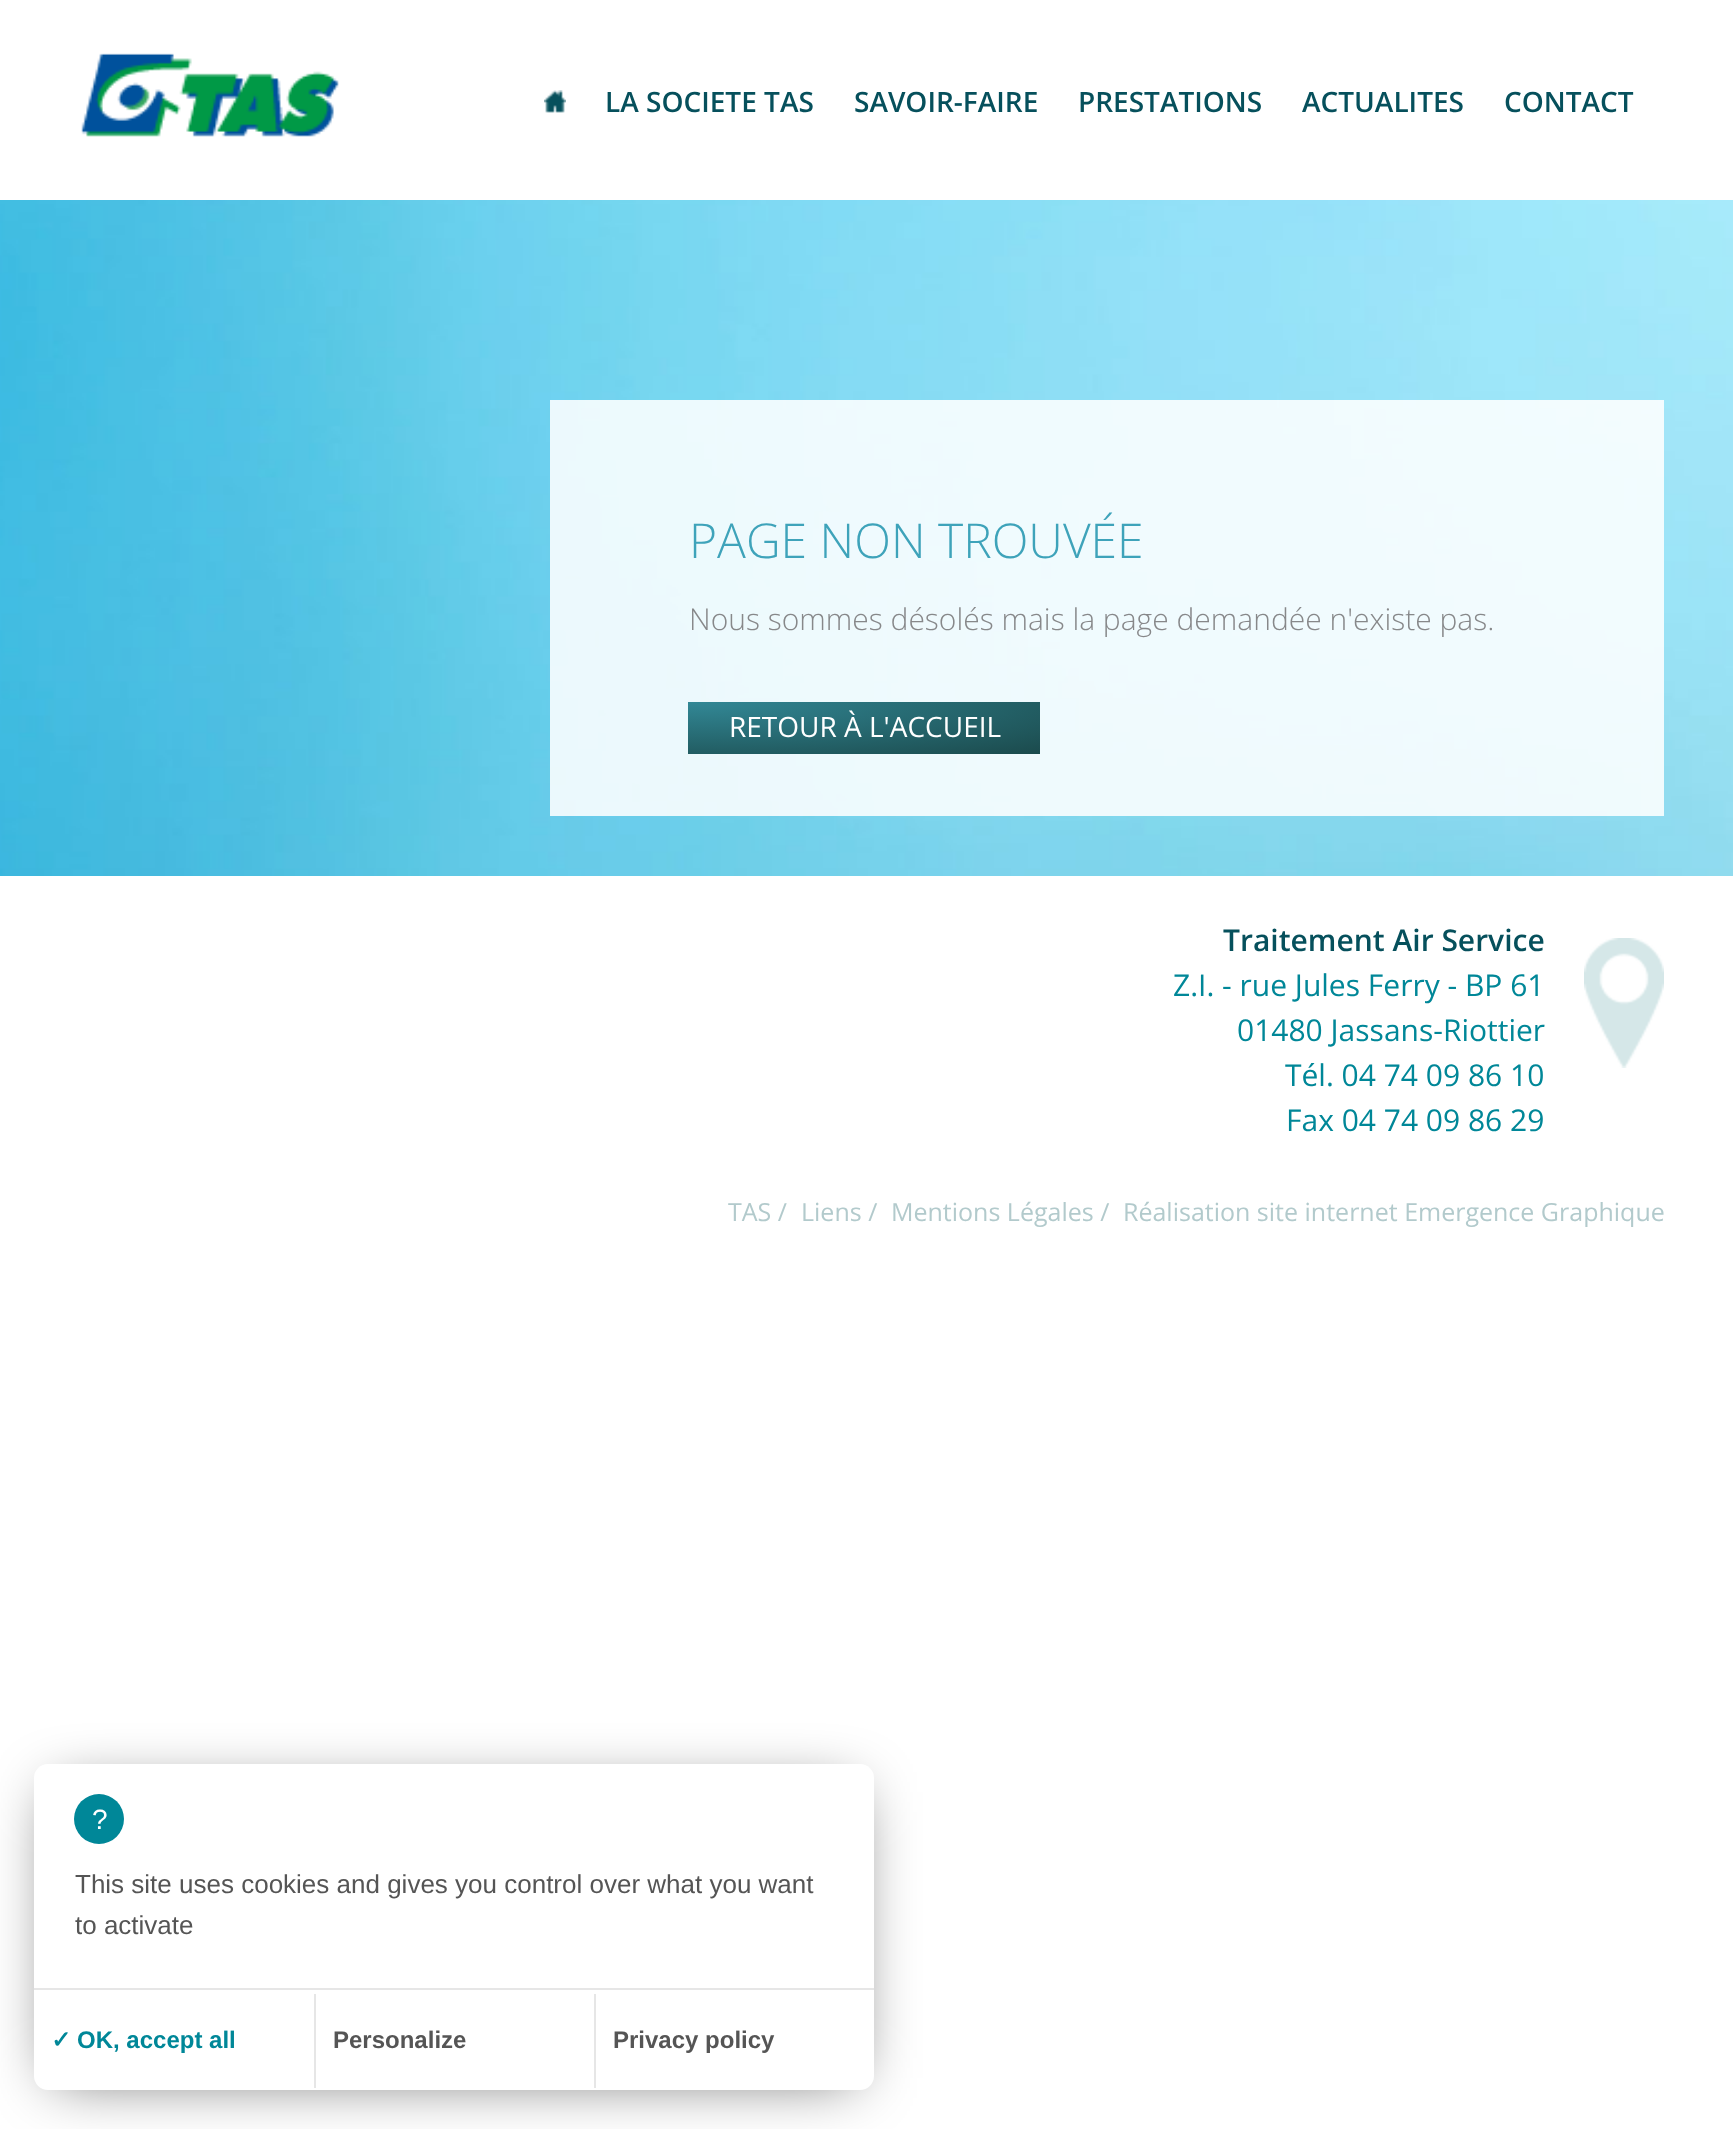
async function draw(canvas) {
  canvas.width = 1733;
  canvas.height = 2129;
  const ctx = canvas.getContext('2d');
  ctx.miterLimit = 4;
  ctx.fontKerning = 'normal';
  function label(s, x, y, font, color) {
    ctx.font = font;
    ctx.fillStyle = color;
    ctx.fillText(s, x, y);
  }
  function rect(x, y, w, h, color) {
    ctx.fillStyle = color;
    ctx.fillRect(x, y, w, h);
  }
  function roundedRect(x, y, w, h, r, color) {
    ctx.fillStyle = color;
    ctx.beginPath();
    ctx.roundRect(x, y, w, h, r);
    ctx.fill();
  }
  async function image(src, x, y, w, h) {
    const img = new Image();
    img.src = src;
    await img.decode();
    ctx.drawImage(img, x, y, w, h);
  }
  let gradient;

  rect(0, 0, 1733, 2129, '#fff');
  await image('assets/img1.png', 81, 53, 258, 84);
  await image('assets/img2.png', 544, 90, 22, 23);
  label('LA SOCIETE TAS', 605, 112, '600 28px Open Sans', '#06505c');
  label('SAVOIR-FAIRE', 854, 112, '600 28px Open Sans', '#06505c');
  label('PRESTATIONS', 1078, 112, '600 28px Open Sans', '#06505c');
  label('ACTUALITES', 1302, 112, '600 28px Open Sans', '#06505c');
  label('CONTACT', 1504, 112, '600 28px Open Sans', '#06505c');
  await image('assets/img3.png', 0, 200, 1733, 676);
  rect(550, 400, 1114, 416, '#ffffffde');
  label('PAGE NON TROUVÉE', 689, 558, '300 48px Open Sans', '#3ea3ba');
  label('Nous sommes désolés mais la page demandée n\'existe pas.', 689, 630, '300 30px Open Sans', '#87888a');
  gradient = ctx.createRadialGradient(688, 4724.27, 0, 688, 4724.27, 498);
  gradient.addColorStop(0, '#328896');
  gradient.addColorStop(1, '#1b4a4c');
  ctx.fillStyle = gradient;
  ctx.beginPath();
  ctx.rect(688, 702, 352, 52);
  ctx.save();
  ctx.clip();
  ctx.scale(1, 74 / 498);
  ctx.fillRect(0, 0, 1733, 14328);
  ctx.restore();
  label('RETOUR À L\'ACCUEIL', 729, 737, '28px Open Sans', '#fff');
  await image('assets/img4.png', 1584, 938, 80, 130);
  label('Traitement Air Service', 1223, 951, '600 30px Open Sans', '#06505c');
  label('Z.I. - rue Jules Ferry - BP 61', 1173, 996, '30px Open Sans', '#008798');
  label('01480 Jassans-Riottier', 1237, 1041, '30px Open Sans', '#008798');
  label('Tél. 04 74 09 86 10', 1285, 1086, '30px Open Sans', '#008798');
  label('Fax 04 74 09 86 29', 1286, 1131, '30px Open Sans', '#008798');
  label('TAS /', 728, 1221, '25px Open Sans', '#b2cacc');
  label('Liens /', 801, 1221, '25px Open Sans', '#b2cacc');
  label('Mentions Légales /', 891, 1221, '25px Open Sans', '#b2cacc');
  label('Réalisation site internet Emergence Graphique', 1123, 1221, '25px Open Sans', '#b2cacc');
  ctx.fillStyle = '#0000009e';
  ctx.filter = 'blur(30px)';
  ctx.beginPath();
  ctx.rect(54, 1792, 800, 286);
  ctx.fill();
  ctx.filter = 'none';
  roundedRect(34, 1764, 840, 326, 14, '#fff');
  rect(34, 1988, 840, 2, '#e6e6e6');
  ctx.fillStyle = '#008798';
  ctx.beginPath();
  ctx.arc(99, 1819, 25, 0, 2 * Math.PI);
  ctx.fill();
  label('?', 92, 1829, '28px Liberation Sans', '#fff');
  label('This site uses cookies and gives you control over what you want', 75, 1893, '26px Liberation Sans', '#555');
  label('to activate', 75, 1934, '26px Liberation Sans', '#555');
  label('✓', 51, 2048, 'bold 24px DejaVu Sans', '#008798');
  label('OK, accept all', 77, 2048, 'bold 24px Liberation Sans', '#008798');
  rect(314, 1994, 2, 94, '#e6e6e6');
  label('Personalize', 333, 2048, 'bold 24px Liberation Sans', '#555');
  rect(594, 1994, 2, 94, '#e6e6e6');
  label('Privacy policy', 613, 2048, 'bold 24px Liberation Sans', '#555');
}

draw(document.querySelector('canvas'));
